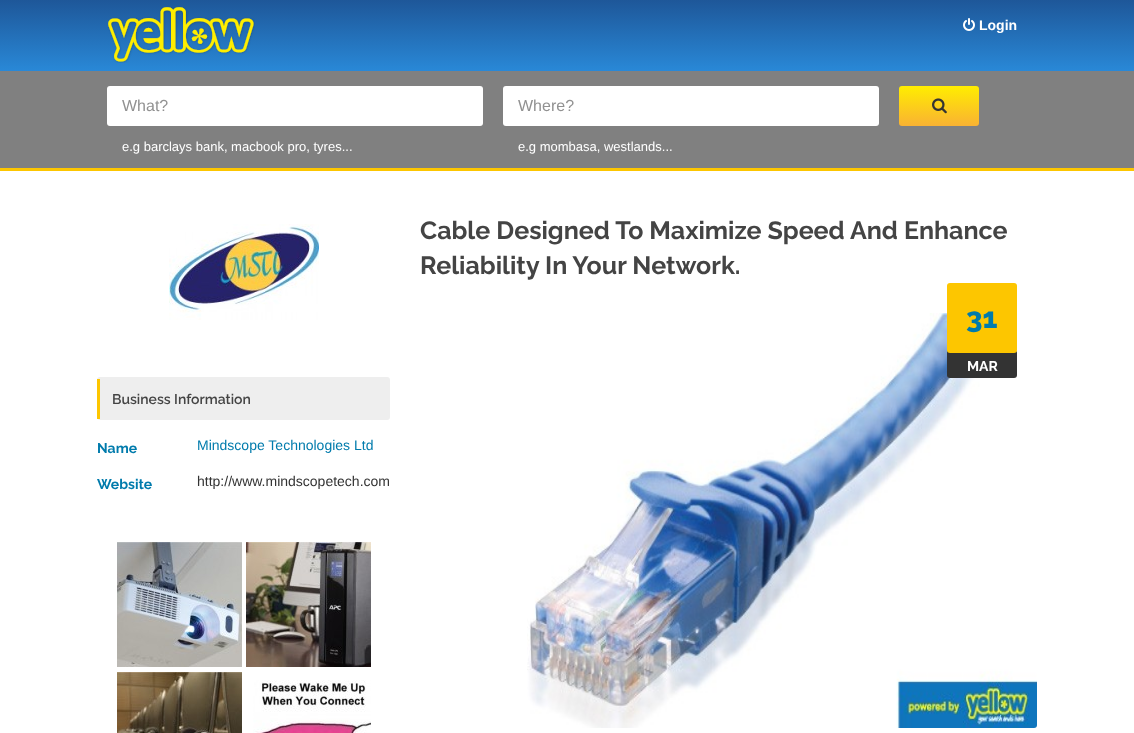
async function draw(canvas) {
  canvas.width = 1134;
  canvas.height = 733;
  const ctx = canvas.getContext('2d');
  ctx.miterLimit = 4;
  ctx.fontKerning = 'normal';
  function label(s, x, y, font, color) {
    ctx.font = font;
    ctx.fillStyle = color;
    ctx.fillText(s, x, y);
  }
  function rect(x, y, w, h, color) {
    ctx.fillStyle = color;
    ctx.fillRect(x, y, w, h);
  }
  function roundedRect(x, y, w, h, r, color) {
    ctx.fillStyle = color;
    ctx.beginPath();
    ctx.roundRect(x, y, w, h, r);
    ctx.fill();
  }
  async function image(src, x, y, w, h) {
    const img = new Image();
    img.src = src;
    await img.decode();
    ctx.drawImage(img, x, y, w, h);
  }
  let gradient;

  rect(0, 0, 1134, 733, '#fff');
  gradient = ctx.createLinearGradient(567, 0, 567, 72);
  gradient.addColorStop(0, '#1e5799');
  gradient.addColorStop(1, '#2989d8');
  ctx.fillStyle = gradient;
  ctx.fillRect(0, 0, 1134, 71);
  await image('assets/img1.png', 108, 7, 147, 56);
  await image('assets/img2.png', 963, 18, 12, 13);
  label('Login', 979, 30, 'bold 14px Liberation Sans', '#fff');
  rect(0, 71, 1134, 97, '#808080');
  rect(0, 168, 1134, 3, '#fdc600');
  roundedRect(107, 86, 376, 40, 3, '#fff');
  label('What?', 122, 111, '16px Liberation Sans', '#919191');
  label('e.g barclays bank, macbook pro, tyres...', 122, 151, '13px Liberation Sans', '#fff');
  roundedRect(503, 86, 376, 40, 3, '#fff');
  label('Where?', 518, 111, '16px Liberation Sans', '#919191');
  label('e.g mombasa, westlands...', 518, 151, '13px Liberation Sans', '#fff');
  gradient = ctx.createLinearGradient(939, 86, 939, 126);
  gradient.addColorStop(0, '#ffed00');
  gradient.addColorStop(1, '#f9b233');
  ctx.fillStyle = gradient;
  ctx.beginPath();
  ctx.roundRect(899, 86, 80, 40, 3);
  ctx.fill();
  await image('assets/img3.png', 932, 98, 15, 16);
  label('Cable Designed To Maximize Speed And Enhance', 420, 239, 'bold 25px Raleway', '#444');
  label('Reliability In Your Network.', 420, 274, 'bold 25px Raleway', '#444');
  await image('assets/img4.png', 527, 313, 510, 415);
  roundedRect(947, 350, 70, 28, 3, '#333');
  roundedRect(947, 283, 70, 70, 3, '#fdc600');
  label('31', 966, 328, '800 29px Raleway', '#007bac');
  label('MAR', 967, 371, 'bold 14px Raleway', '#fff');
  await image('assets/img5.png', 169, 224, 150, 96);
  roundedRect(97, 377, 293, 43, 3, '#eee');
  rect(97, 379, 3, 40, '#fdc600');
  label('Business Information', 112, 404, '600 14px Raleway', '#444');
  label('Name', 97, 453, 'bold 14px Raleway', '#007bac');
  label('Mindscope Technologies Ltd', 197, 450, '14px Liberation Sans', '#007bac');
  label('Website', 97, 489, 'bold 14px Raleway', '#007bac');
  label('http://www.mindscopetech.com', 197, 486, '14px Liberation Sans', '#333');
  await image('assets/img6.png', 117, 542, 125, 125);
  await image('assets/img7.png', 246, 542, 125, 125);
  await image('assets/img8.png', 117, 672, 125, 61);
  await image('assets/img9.png', 253, 680, 118, 53);
}

draw(document.querySelector('canvas'));
